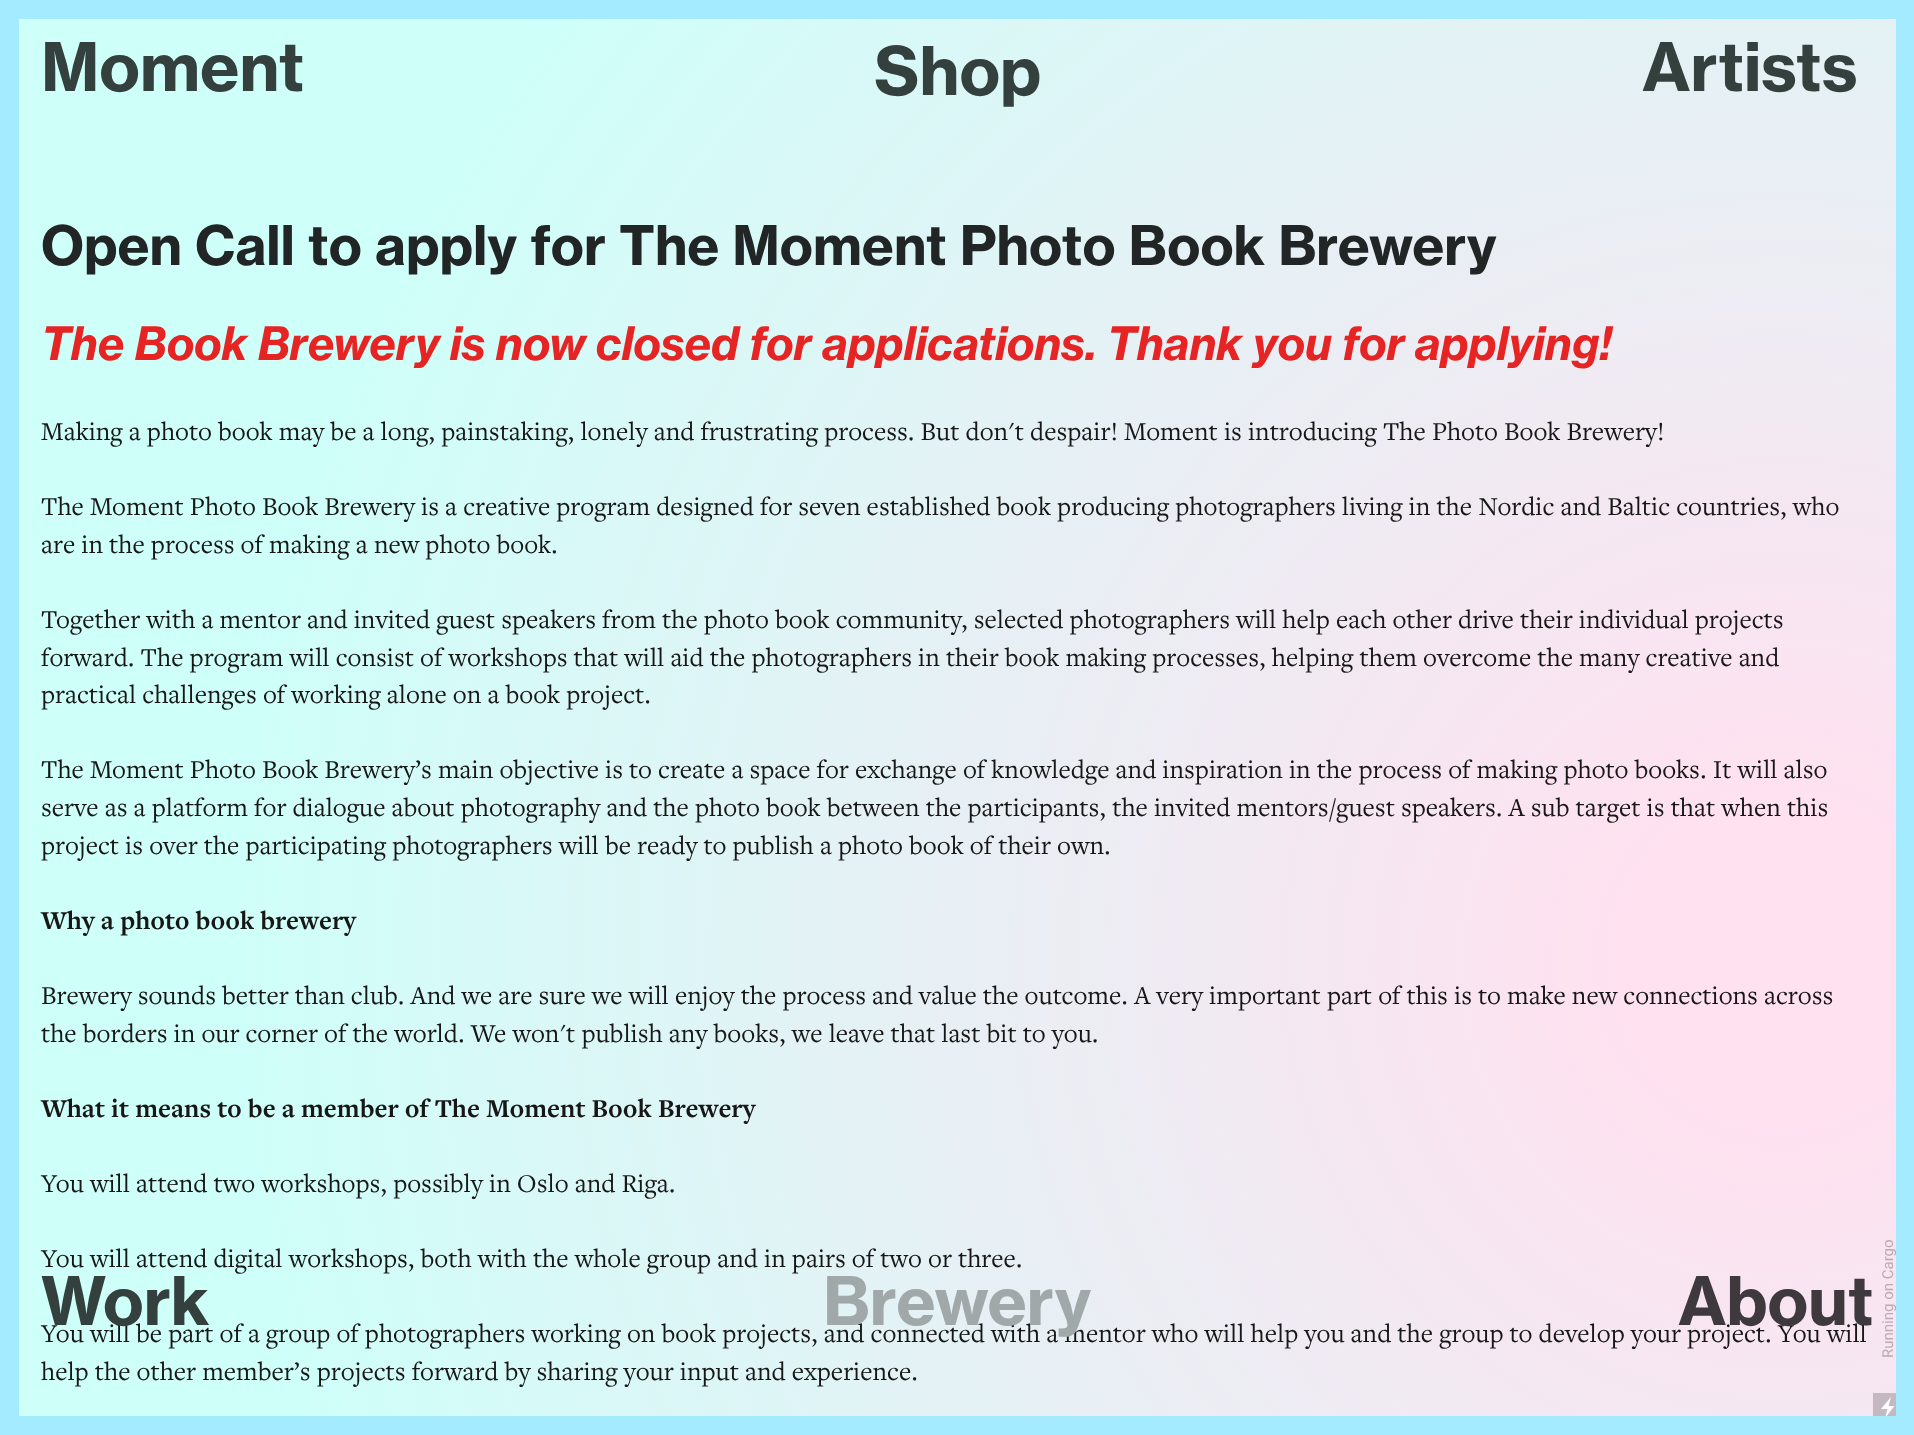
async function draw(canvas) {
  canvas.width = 1914;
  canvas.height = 1435;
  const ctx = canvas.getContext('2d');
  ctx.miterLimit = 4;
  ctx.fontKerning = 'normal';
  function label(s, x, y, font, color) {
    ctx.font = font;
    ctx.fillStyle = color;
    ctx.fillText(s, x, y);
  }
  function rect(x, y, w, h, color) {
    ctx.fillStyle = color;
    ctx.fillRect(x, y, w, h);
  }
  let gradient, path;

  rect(0, 0, 1914, 1435, '#fff');
  rect(0, 0, 1914, 19, '#a5ebff');
  rect(0, 19, 19, 1397, '#a5ebff');
  gradient = ctx.createRadialGradient(1781, 961, 0, 1781, 961, 2024);
  gradient.addColorStop(0, '#ffe1f0');
  gradient.addColorStop(0.08, '#ffe1f0');
  gradient.addColorStop(0.77, '#cefff9');
  gradient.addColorStop(1, '#cefff9');
  ctx.fillStyle = gradient;
  ctx.fillRect(19, 19, 1877, 1397);
  ctx.font = '15px Roboto';
  ctx.fillStyle = '#baacb5';
  ctx.save();
  ctx.translate(1893, 1358);
  ctx.rotate(-90 * Math.PI / 180);
  ctx.fillText('Running on Cargo', 0, 0);
  ctx.restore();
  rect(1896, 19, 18, 1397, '#a5ebff');
  rect(1873, 1393, 23, 23, '#c4b9c2');
  ctx.fillStyle = '#fff';
  path = new Path2D('M1894.5 1406H1888.5L1891 1397L1881 1409H1887.5L1885 1418Z');
  ctx.fill(path);
  rect(0, 1416, 1914, 19, '#a5ebff');
  label('Moment', 41, 91, 'bold 66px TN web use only', '#34403e');
  label('Artists', 1642, 91, 'bold 66px TN web use only', '#34403e');
  label('Shop', 874, 95, 'bold 66px TN web use only', '#34403e');
  label('Open Call to apply for The Moment Photo Book Brewery', 41, 265, 'bold 53.75px TN web use only', '#212525');
  label('The Book Brewery is now closed for applications. Thank you for applying!', 41, 360, 'italic bold 45.45px TN web use only', '#e62424');
  label('Making a photo book may be a long, painstaking, lonely and frustrating process. But don\'t despair! Moment is introducing The Photo Book Brewery!', 41, 440, '26.85px "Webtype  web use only"', '#171717');
  label('The Moment Photo Book Brewery is a creative program designed for seven established book producing photographers living in the Nordic and Baltic countries, who', 41, 515, '26.85px "Webtype  web use only"', '#171717');
  label('are in the process of making a new photo book.', 41, 553, '26.85px "Webtype  web use only"', '#171717');
  label('Together with a mentor and invited guest speakers from the photo book community, selected photographers will help each other drive their individual projects', 41, 628, '26.85px "Webtype  web use only"', '#171717');
  label('forward. The program will consist of workshops that will aid the photographers in their book making processes, helping them overcome the many creative and', 41, 666, '26.85px "Webtype  web use only"', '#171717');
  label('practical challenges of working alone on a book project.', 41, 703, '26.85px "Webtype  web use only"', '#171717');
  label('The Moment Photo Book Brewery’s main objective is to create a space for exchange of knowledge and inspiration in the process of making photo books. It will also', 41, 778, '26.85px "Webtype  web use only"', '#171717');
  label('serve as a platform for dialogue about photography and the photo book between the participants, the invited mentors/guest speakers. A sub target is that when this', 41, 816, '26.85px "Webtype  web use only"', '#171717');
  label('project is over the participating photographers will be ready to publish a photo book of their own.', 41, 854, '26.85px "Webtype  web use only"', '#171717');
  label('Why a photo book brewery', 41, 929, 'bold 26.85px "Webtype  web use only"', '#171717');
  label('Brewery sounds better than club. And we are sure we will enjoy the process and value the outcome. A very important part of this is to make new connections across', 41, 1004, '26.85px "Webtype  web use only"', '#171717');
  label('the borders in our corner of the world. We won\'t publish any books, we leave that last bit to you.', 41, 1042, '26.85px "Webtype  web use only"', '#171717');
  label('What it means to be a member of The Moment Book Brewery', 41, 1117, 'bold 26.85px "Webtype  web use only"', '#171717');
  label('You will attend two workshops, possibly in Oslo and Riga.', 41, 1192, '26.85px "Webtype  web use only"', '#171717');
  label('You will attend digital workshops, both with the whole group and in pairs of two or three.', 41, 1267, '26.85px "Webtype  web use only"', '#171717');
  label('You will be part of a group of photographers working on book projects, and connected with a mentor who will help you and the group to develop your project. You will', 41, 1342, '26.85px "Webtype  web use only"', '#171717');
  label('help the other member’s projects forward by sharing your input and experience.', 41, 1380, '26.85px "Webtype  web use only"', '#171717');
  label('Work', 41, 1325, 'bold 66px TN web use only', '#34403e');
  label('Brewery', 823, 1325, 'bold 66px TN web use only', '#a0a8aa');
  label('About', 1678, 1325, 'bold 66px TN web use only', '#3e393c');
}

draw(document.querySelector('canvas'));
